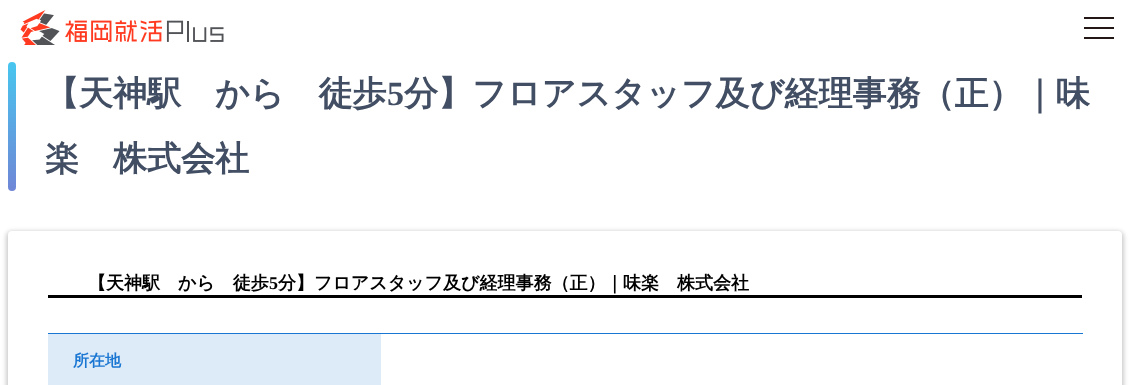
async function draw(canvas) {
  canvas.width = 1130;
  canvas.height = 385;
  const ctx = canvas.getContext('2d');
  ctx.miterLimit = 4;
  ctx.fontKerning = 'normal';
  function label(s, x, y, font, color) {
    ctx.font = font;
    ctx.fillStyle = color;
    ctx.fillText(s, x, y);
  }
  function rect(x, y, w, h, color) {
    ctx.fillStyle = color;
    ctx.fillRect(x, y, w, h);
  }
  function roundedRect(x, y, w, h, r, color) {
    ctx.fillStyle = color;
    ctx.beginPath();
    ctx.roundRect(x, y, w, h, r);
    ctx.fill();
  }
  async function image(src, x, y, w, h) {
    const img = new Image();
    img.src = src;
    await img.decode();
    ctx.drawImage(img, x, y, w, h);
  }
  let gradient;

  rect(0, 0, 1130, 385, '#fff');
  await image('assets/img1.png', 20, 10, 204, 35);
  rect(1084, 17, 30, 2, '#231815');
  rect(1084, 27, 30, 2, '#231815');
  rect(1084, 37, 30, 2, '#231815');
  gradient = ctx.createLinearGradient(12, 62, 12, 191);
  gradient.addColorStop(0, '#48c6ef');
  gradient.addColorStop(1, '#6f86d6');
  ctx.fillStyle = gradient;
  ctx.beginPath();
  ctx.roundRect(8, 62, 8, 129, 4);
  ctx.fill();
  label('【天神駅　から　徒歩', 45, 105, 'bold 34px WenQuanYi Zen Hei', '#424e63');
  label('5', 387, 105, 'bold 34px Liberation Serif', '#424e63');
  label('分】フロアスタッフ及び経理事務（正）｜味', 404, 105, 'bold 34px WenQuanYi Zen Hei', '#424e63');
  label('楽　株式会社', 45, 170, 'bold 34px WenQuanYi Zen Hei', '#424e63');
  ctx.fillStyle = '#00000033';
  ctx.filter = 'blur(2px)';
  ctx.beginPath();
  ctx.roundRect(6, 231, 1118, 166, 6);
  ctx.fill();
  ctx.filter = 'none';
  roundedRect(8, 231, 1114, 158, 4, '#fff');
  rect(48, 295, 1034, 3, '#000');
  label('【天神駅　から　徒歩', 88, 289, 'bold 18px WenQuanYi Zen Hei', '#000');
  label('5', 269, 289, 'bold 18px Liberation Serif', '#000');
  label('分】フロアスタッフ及び経理事務（正）｜味楽　株式会社', 278, 289, 'bold 18px WenQuanYi Zen Hei', '#000');
  rect(48, 333, 1035, 1, '#1976d2');
  rect(48, 334, 333, 51, '#ddeaf8');
  label('所在地', 73, 366, 'bold 16px WenQuanYi Zen Hei', '#1976d2');
}

draw(document.querySelector('canvas'));
